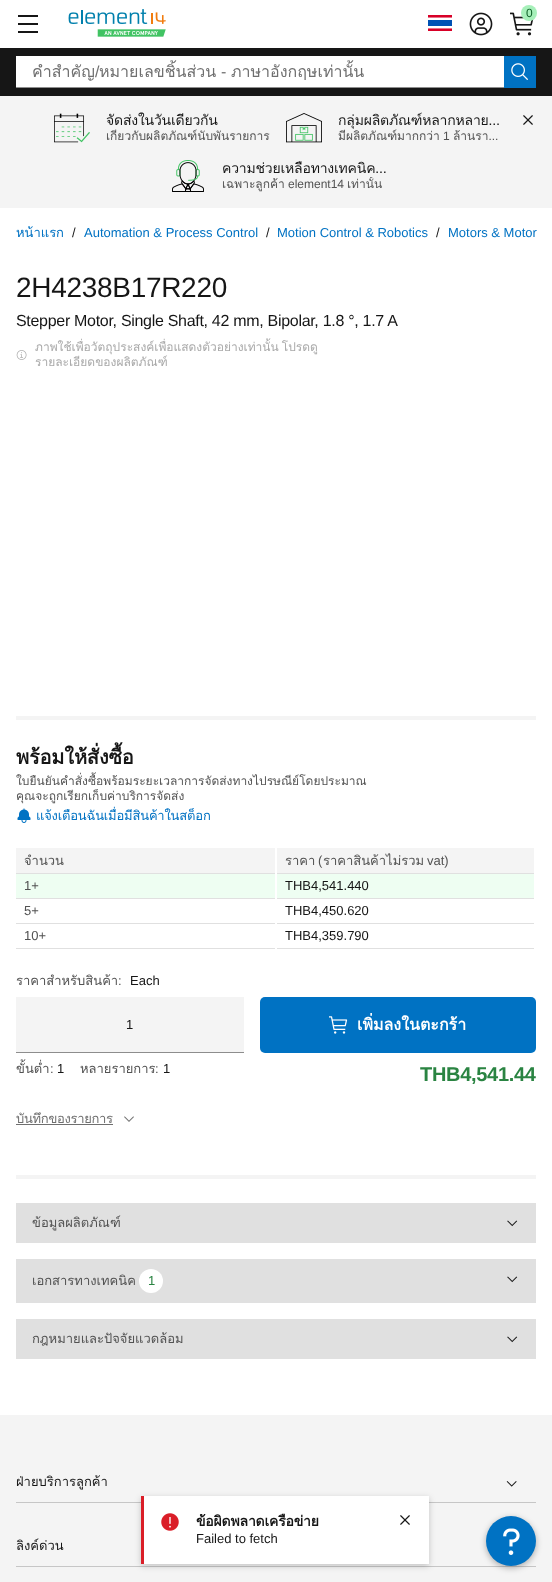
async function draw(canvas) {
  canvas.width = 552;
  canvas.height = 1582;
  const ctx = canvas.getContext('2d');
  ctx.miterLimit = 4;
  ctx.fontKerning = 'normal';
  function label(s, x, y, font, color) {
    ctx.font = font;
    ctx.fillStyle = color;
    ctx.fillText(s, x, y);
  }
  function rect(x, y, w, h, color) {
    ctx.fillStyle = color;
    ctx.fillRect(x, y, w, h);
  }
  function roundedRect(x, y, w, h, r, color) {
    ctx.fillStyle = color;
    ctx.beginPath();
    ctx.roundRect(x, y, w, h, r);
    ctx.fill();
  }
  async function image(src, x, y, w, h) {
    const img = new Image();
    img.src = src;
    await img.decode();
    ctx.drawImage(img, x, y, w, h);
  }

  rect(0, 0, 552, 1582, '#fff');
  rect(18, 15, 20, 2, '#161616');
  rect(18, 23, 20, 2, '#161616');
  rect(18, 31, 20, 2, '#161616');
  await image('assets/img1.png', 68, 9, 98, 28);
  await image('assets/img2.png', 428, 15, 24, 16);
  await image('assets/img3.png', 469, 12, 24, 24);
  await image('assets/img4.png', 510, 12, 24, 24);
  ctx.fillStyle = '#a7f0ba';
  ctx.beginPath();
  ctx.arc(529, 13, 8, 0, 2 * Math.PI);
  ctx.fill();
  label('0', 526, 17, '12px Liberation Sans', '#0e6027');
  rect(0, 48, 552, 48, '#161616');
  rect(16, 56, 488, 31, '#fff');
  rect(16, 87, 488, 1, '#8d8d8d');
  ctx.save();
  ctx.beginPath();
  ctx.rect(32, 59, 432, 25);
  ctx.clip();
  label('คำสำคัญ', 32, 77, '16px Loma', '#6f6f6f');
  ctx.restore();
  label('/', 95, 77, '16px Liberation Sans', '#6f6f6f');
  label('หมายเลขชิ้นส่วน', 99, 77, '16px Loma', '#6f6f6f');
  label('-', 221, 77, '16px Liberation Sans', '#6f6f6f');
  label('ภาษาอังกฤษเท่านั้น', 231, 77, '16px Loma', '#6f6f6f');
  rect(504, 56, 32, 32, '#0072c3');
  await image('assets/img5.png', 511, 63, 17, 17);
  rect(0, 96, 552, 112, '#f4f4f4');
  await image('assets/img6.png', 54, 113, 36, 30);
  ctx.save();
  ctx.beginPath();
  ctx.rect(106, 112, 164, 17);
  ctx.clip();
  ctx.letterSpacing = '-0.2px';
  label('จัดส่งในวันเดียวกัน', 106, 125, '14px Loma', '#161616');
  ctx.restore();
  ctx.save();
  ctx.beginPath();
  ctx.rect(106, 129, 164, 15);
  ctx.clip();
  label('เกี่ยวกับผลิตภัณฑ์นับพันรายการ', 106, 140, '12px Loma', '#525252');
  ctx.restore();
  await image('assets/img7.png', 286, 113, 36, 30);
  ctx.letterSpacing = '-0.2px';
  label('กลุ่มผลิตภัณฑ์หลากหลาย…', 338, 125, '14px Loma', '#161616');
  ctx.save();
  ctx.beginPath();
  ctx.rect(338, 129, 164, 15);
  ctx.clip();
  ctx.letterSpacing = '0px';
  label('มีผลิตภัณฑ์มากกว่า', 338, 140, '12px Loma', '#525252');
  ctx.restore();
  ctx.letterSpacing = '0px';
  label('1', 443, 140, '12px Liberation Sans', '#525252');
  label('ล้านรา…', 453, 140, '12px Loma', '#525252');
  await image('assets/img8.png', 172, 160, 32, 32);
  ctx.letterSpacing = '-0.2px';
  label('ความช่วยเหลือทางเทคนิค…', 222, 173, '14px Loma', '#161616');
  ctx.letterSpacing = '0px';
  label('เฉพาะลูกค้า', 222, 188, '12px Loma', '#525252');
  label('element14', 288, 188, '12px Liberation Sans', '#525252');
  ctx.save();
  ctx.beginPath();
  ctx.rect(222, 177, 164, 15);
  ctx.clip();
  label('เท่านั้น', 347, 188, '12px Loma', '#525252');
  ctx.restore();
  await image('assets/img9.png', 523, 115, 10, 10);
  label('หน้าแรก', 16, 237, '13px Loma', '#0072c3');
  label('/', 72, 237, '13px Liberation Sans', '#161616');
  label('Automation & Process Control', 84, 237, '13px Liberation Sans', '#0072c3');
  label('/', 266, 237, '13px Liberation Sans', '#161616');
  label('Motion Control & Robotics', 277, 237, '13px Liberation Sans', '#0072c3');
  label('/', 436, 237, '13px Liberation Sans', '#161616');
  label('Motors & Motor', 448, 237, '13px Liberation Sans', '#0072c3');
  ctx.letterSpacing = '-0.3px';
  label('2H4238B17R220', 16, 297, '28px Liberation Sans', '#161616');
  label('Stepper Motor, Single Shaft, 42 mm, Bipolar, 1.8 °, 1.7 A', 16, 326, '16px Liberation Sans', '#161616');
  await image('assets/img10.png', 16, 350, 11, 10);
  ctx.letterSpacing = '0px';
  ctx.wordSpacing = '-1px';
  label('ภาพใช้เพื่อวัตถุประสงค์เพื่อแสดงตัวอย่างเท่านั้น โปรดดู', 35, 351, '12px Loma', '#a8a8a8');
  ctx.wordSpacing = '0px';
  label('รายละเอียดของผลิตภัณฑ์', 35, 366, '12px Loma', '#a8a8a8');
  rect(16, 716, 520, 4, '#f4f4f4');
  ctx.letterSpacing = '-0.2px';
  label('พร้อมให้สั่งซื้อ', 16, 764, 'bold 20px Loma', '#161616');
  ctx.letterSpacing = '0px';
  label('ใบยืนยันคำสั่งซื้อพร้อมระยะเวลาการจัดส่งทางไปรษณีย์โดยประมาณ', 16, 785, '12px Loma', '#525252');
  label('คุณจะถูกเรียกเก็บค่าบริการจัดส่ง', 16, 800, '12px Loma', '#525252');
  await image('assets/img11.png', 17, 808, 14, 15);
  ctx.letterSpacing = '-0.2px';
  label('แจ้งเตือนฉันเมื่อมีสินค้าในสต็อก', 36, 820, '13px Loma', '#0072c3');
  rect(16, 849, 259, 24, '#f4f4f4');
  rect(16, 848, 520, 1, '#f4f4f4');
  rect(275, 848, 2, 1, '#fff');
  ctx.letterSpacing = '0px';
  label('จำนวน', 24, 865, '13px Loma', '#525252');
  rect(277, 849, 257, 24, '#f4f4f4');
  rect(16, 873, 520, 1, '#e0e0e0');
  rect(534, 848, 2, 1, '#fff');
  label('ราคา', 285, 865, '13px Loma', '#525252');
  label('(', 318, 865, '13px Liberation Sans', '#525252');
  label('ราคาสินค้าไม่รวม', 323, 865, '13px Loma', '#525252');
  label('vat)', 427, 865, '13px Liberation Sans', '#525252');
  rect(16, 874, 259, 24, '#eefef2');
  rect(275, 873, 2, 1, '#fff');
  label('1+', 24, 890, '13px Liberation Sans', '#525252');
  rect(277, 874, 257, 24, '#eefef2');
  rect(16, 898, 520, 1, '#e0e0e0');
  rect(534, 873, 2, 1, '#fff');
  label('THB4,541.440', 285, 890, '13px Liberation Sans', '#161616');
  rect(275, 898, 2, 1, '#fff');
  label('5+', 24, 915, '13px Liberation Sans', '#525252');
  rect(16, 923, 520, 1, '#e0e0e0');
  rect(534, 898, 2, 1, '#fff');
  label('THB4,450.620', 285, 915, '13px Liberation Sans', '#161616');
  rect(16, 948, 520, 1, '#e0e0e0');
  rect(275, 923, 2, 27, '#fff');
  label('10+', 24, 940, '13px Liberation Sans', '#525252');
  rect(534, 923, 2, 27, '#fff');
  label('THB4,359.790', 285, 940, '13px Liberation Sans', '#161616');
  label('ราคาสำหรับสินค้า', 16, 985, '13px Loma', '#525252');
  label(':', 118, 985, '13px Liberation Sans', '#525252');
  label('Each', 130, 985, '13px Liberation Sans', '#161616');
  rect(16, 997, 228, 55, '#f4f4f4');
  rect(16, 1052, 228, 1, '#8d8d8d');
  label('1', 126, 1029, '13px Liberation Sans', '#161616');
  roundedRect(260, 997, 276, 56, 5, '#0072c3');
  await image('assets/img12.png', 329, 1016, 19, 18);
  ctx.save();
  ctx.beginPath();
  ctx.rect(357, 1011, 110, 28);
  ctx.clip();
  label('เพิ่มลงในตะกร้า', 357, 1030, 'bold 16px Loma', '#fff');
  ctx.restore();
  label('ขั้นต่ำ', 16, 1073, '13px Loma', '#525252');
  label(':', 50, 1073, '13px Liberation Sans', '#525252');
  label('1', 57, 1073, '13px Liberation Sans', '#161616');
  label('หลายรายการ', 80, 1073, '13px Loma', '#525252');
  label(':', 155, 1073, '13px Liberation Sans', '#525252');
  label('1', 163, 1073, '13px Liberation Sans', '#161616');
  ctx.letterSpacing = '-0.3px';
  label('THB4,541.44', 420, 1081, 'bold 20px Liberation Sans', '#2a8442');
  label('บันทึกของรายการ', 16, 1123, '13px Loma', '#6f6f6f');
  rect(16, 1124, 97, 1, '#6f6f6f');
  await image('assets/img13.png', 124, 1116, 10, 6);
  rect(16, 1175, 520, 4, '#f4f4f4');
  rect(16, 1203, 520, 40, '#e0e0e0');
  ctx.letterSpacing = '0px';
  label('ข้อมูลผลิตภัณฑ์', 32, 1227, '13px Loma', '#525252');
  await image('assets/img14.png', 507, 1220, 11, 7);
  rect(16, 1259, 520, 44, '#e0e0e0');
  label('เอกสารทางเทคนิค', 32, 1285, '13px Loma', '#525252');
  ctx.fillStyle = '#fff';
  ctx.beginPath();
  ctx.arc(151, 1281, 12, 0, 2 * Math.PI);
  ctx.fill();
  label('1', 148, 1285, '13px Liberation Sans', '#2a8442');
  await image('assets/img14.png', 507, 1276, 11, 7);
  rect(16, 1319, 520, 40, '#e0e0e0');
  label('กฎหมายและปัจจัยแวดล้อม', 32, 1343, '13px Loma', '#525252');
  await image('assets/img14.png', 507, 1336, 11, 7);
  rect(0, 1415, 552, 167, '#f4f4f4');
  rect(16, 1502, 520, 1, '#c6c6c6');
  rect(16, 1566, 520, 1, '#c6c6c6');
  ctx.fillStyle = '#00000033';
  ctx.filter = 'blur(3px)';
  ctx.beginPath();
  ctx.rect(141, 1498, 288, 68);
  ctx.fill();
  ctx.filter = 'none';
  rect(144, 1496, 285, 68, '#fff');
  rect(141, 1496, 3, 68, '#da1e28');
  await image('assets/img15.png', 161, 1513, 18, 18);
  ctx.letterSpacing = '-0.2px';
  label('ข้อผิดพลาดเครือข่าย', 196, 1526, 'bold 14px Loma', '#161616');
  ctx.letterSpacing = '0px';
  label('Failed to fetch', 196, 1543, '13px Liberation Sans', '#161616');
  await image('assets/img16.png', 400, 1515, 10, 10);
  label('ฝ่ายบริการลูกค้า', 16, 1486, '13px Loma', '#161616');
  await image('assets/img17.png', 506, 1481, 11, 6);
  label('ลิงค์ด่วน', 16, 1550, '13px Loma', '#161616');
  ctx.fillStyle = '#0000004d';
  ctx.filter = 'blur(3px)';
  ctx.beginPath();
  ctx.roundRect(486, 1518, 50, 50, 25);
  ctx.fill();
  ctx.filter = 'none';
  ctx.fillStyle = '#0072c3';
  ctx.beginPath();
  ctx.arc(511, 1541, 25, 0, 2 * Math.PI);
  ctx.fill();
  await image('assets/img18.png', 503, 1528, 17, 27);
}

draw(document.querySelector('canvas'));
